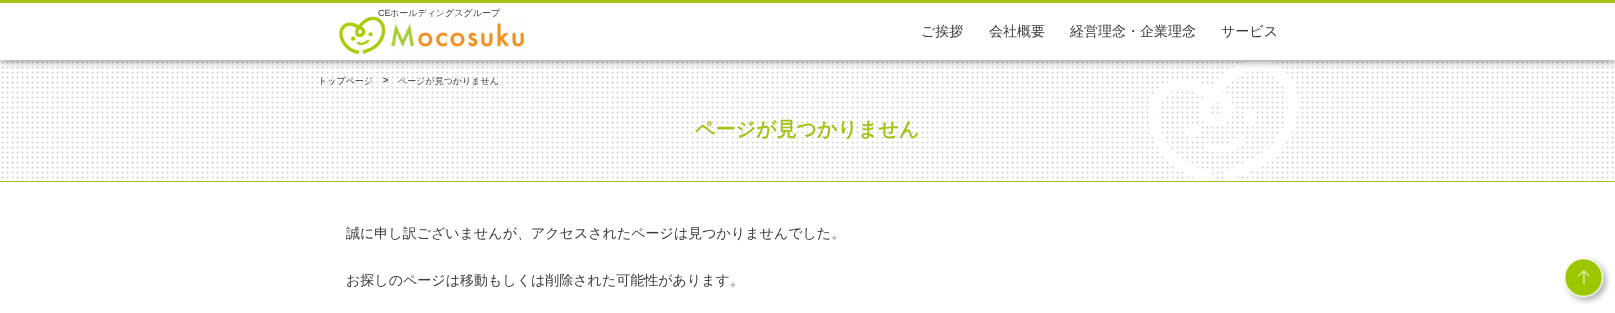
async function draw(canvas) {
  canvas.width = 1615;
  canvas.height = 313;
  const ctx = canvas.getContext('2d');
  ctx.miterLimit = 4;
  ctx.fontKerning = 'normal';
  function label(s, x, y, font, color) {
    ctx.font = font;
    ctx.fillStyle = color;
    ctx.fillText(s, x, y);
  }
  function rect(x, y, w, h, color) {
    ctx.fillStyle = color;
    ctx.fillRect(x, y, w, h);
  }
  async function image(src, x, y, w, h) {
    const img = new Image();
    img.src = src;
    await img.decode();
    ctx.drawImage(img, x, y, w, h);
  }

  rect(0, 0, 1615, 313, '#fff');
  await image('assets/img2.png', 1, 61, 1613, 118);
  await image('assets/img3.png', 1148, 61, 150, 118);
  ctx.save();
  ctx.beginPath();
  ctx.rect(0, 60, 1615, 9);
  ctx.clip();
  ctx.fillStyle = '#00000099';
  ctx.filter = 'blur(5px)';
  ctx.beginPath();
  ctx.rect(0, 0, 1615, 60);
  ctx.fill();
  ctx.filter = 'none';
  ctx.restore();
  rect(0, 0, 1615, 3, '#a3c318');
  await image('assets/img1.png', 339, 16, 186, 39);
  label('CE', 378, 16, '9px Liberation Sans', '#3c3c3c');
  label('ホールディングスグループ', 390, 16, '500 9px WenQuanYi Zen Hei', '#3c3c3c');
  label('ご挨拶', 921, 36, '500 14px WenQuanYi Zen Hei', '#3c3c3c');
  label('会社概要', 989, 36, '500 14px WenQuanYi Zen Hei', '#3c3c3c');
  label('経営理念・企業理念', 1070, 36, '500 14px WenQuanYi Zen Hei', '#3c3c3c');
  label('サービス', 1221, 36, '500 14px WenQuanYi Zen Hei', '#3c3c3c');
  rect(0, 181, 1615, 1, '#a3c318');
  label('トップページ', 318, 84, '500 9px WenQuanYi Zen Hei', '#3c3c3c');
  label('>', 383, 83, 'bold 9px Liberation Sans', '#3c3c3c');
  label('ページが見つかりません', 398, 84, '500 9px WenQuanYi Zen Hei', '#3c3c3c');
  label('ページが見つかりません', 695, 136, 'bold 20px WenQuanYi Zen Hei', '#a3c318');
  label('誠に申し訳ございませんが、アクセスされたページは見つかりませんでした。', 346, 238, '500 14px WenQuanYi Zen Hei', '#3c3c3c');
  label('お探しのページは移動もしくは削除された可能性があります。', 346, 285, '500 14px WenQuanYi Zen Hei', '#3c3c3c');
  await image('assets/img4.png', 1563, 257, 47, 47);
}

draw(document.querySelector('canvas'));
